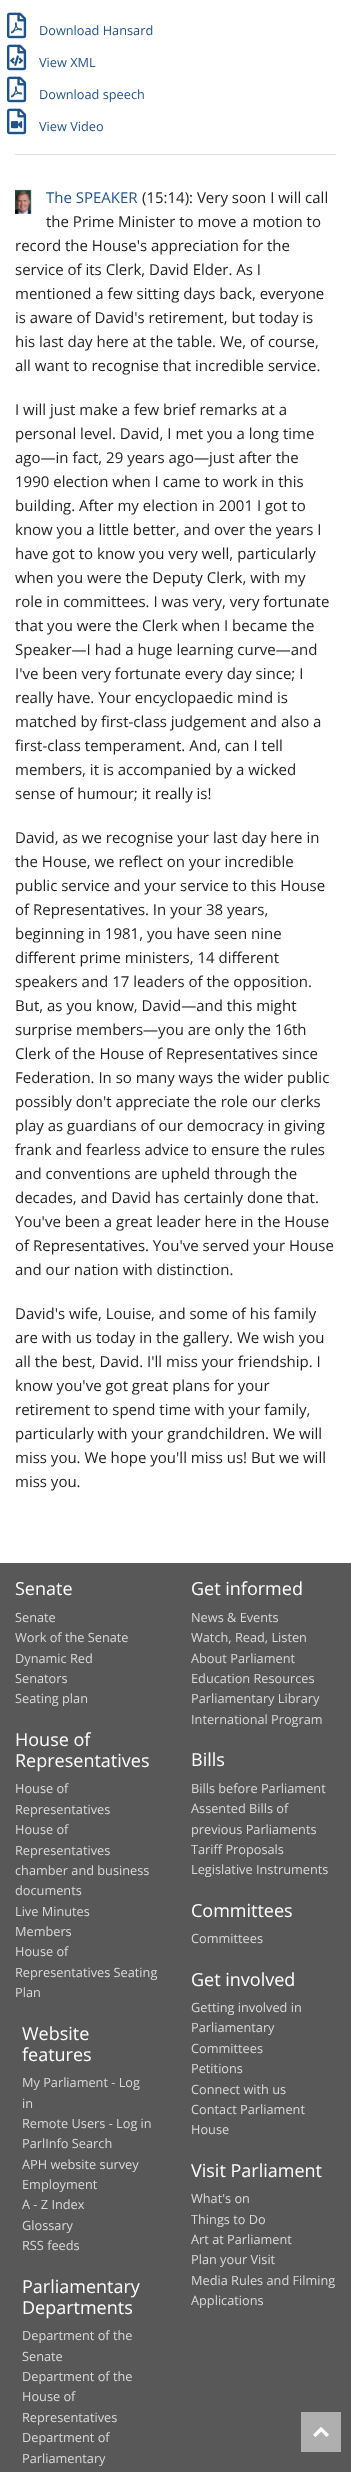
async function draw(canvas) {
  canvas.width = 351;
  canvas.height = 2472;
  const ctx = canvas.getContext('2d');
  ctx.miterLimit = 4;
  ctx.fontKerning = 'normal';
  function label(s, x, y, font, color) {
    ctx.font = font;
    ctx.fillStyle = color;
    ctx.fillText(s, x, y);
  }
  function rect(x, y, w, h, color) {
    ctx.fillStyle = color;
    ctx.fillRect(x, y, w, h);
  }
  async function image(src, x, y, w, h) {
    const img = new Image();
    img.src = src;
    await img.decode();
    ctx.drawImage(img, x, y, w, h);
  }

  rect(0, 0, 351, 2472, '#fff');
  await image('assets/img1.png', 7, 12, 20, 27);
  label('Download Hansard', 39, 35, '12.75px Open Sans', '#1f538d');
  await image('assets/img2.png', 7, 44, 20, 27);
  label('View XML', 39, 67, '12.75px Open Sans', '#1f538d');
  await image('assets/img1.png', 7, 76, 20, 27);
  label('Download speech', 39, 99, '12.75px Open Sans', '#1f538d');
  await image('assets/img3.png', 7, 108, 20, 27);
  label('View Video', 39, 131, '12.75px Open Sans', '#1f538d');
  rect(15, 154, 321, 1, '#ddd');
  await image('assets/img4.png', 15, 189, 17, 25);
  label('The SPEAKER', 46, 203, '15px Open Sans', '#1f538d');
  label('(15:14): Very soon I will call', 142, 203, '15px Open Sans', '#222');
  label('the Prime Minister to move a motion to', 46, 227, '15px Open Sans', '#222');
  label('record the House\'s appreciation for the', 15, 251, '15px Open Sans', '#222');
  label('service of its Clerk, David Elder. As I', 15, 275, '15px Open Sans', '#222');
  label('mentioned a few sitting days back, everyone', 15, 299, '15px Open Sans', '#222');
  label('is aware of David\'s retirement, but today is', 15, 323, '15px Open Sans', '#222');
  label('his last day here at the table. We, of course,', 15, 347, '15px Open Sans', '#222');
  label('all want to recognise that incredible service.', 15, 371, '15px Open Sans', '#222');
  label('I will just make a few brief remarks at a', 15, 415, '15px Open Sans', '#222');
  label('personal level. David, I met you a long time', 15, 439, '15px Open Sans', '#222');
  label('ago—in fact, 29 years ago—just after the', 15, 463, '15px Open Sans', '#222');
  label('1990 election when I came to work in this', 15, 487, '15px Open Sans', '#222');
  label('building. After my election in 2001 I got to', 15, 511, '15px Open Sans', '#222');
  label('know you a little better, and over the years I', 15, 535, '15px Open Sans', '#222');
  label('have got to know you very well, particularly', 15, 559, '15px Open Sans', '#222');
  label('when you were the Deputy Clerk, with my', 15, 583, '15px Open Sans', '#222');
  label('role in committees. I was very, very fortunate', 15, 607, '15px Open Sans', '#222');
  label('that you were the Clerk when I became the', 15, 631, '15px Open Sans', '#222');
  label('Speaker—I had a huge learning curve—and', 15, 655, '15px Open Sans', '#222');
  label('I\'ve been very fortunate every day since; I', 15, 679, '15px Open Sans', '#222');
  label('really have. Your encyclopaedic mind is', 15, 703, '15px Open Sans', '#222');
  label('matched by first-class judgement and also a', 15, 727, '15px Open Sans', '#222');
  label('first-class temperament. And, can I tell', 15, 751, '15px Open Sans', '#222');
  label('members, it is accompanied by a wicked', 15, 775, '15px Open Sans', '#222');
  label('sense of humour; it really is!', 15, 799, '15px Open Sans', '#222');
  label('David, as we recognise your last day here in', 15, 843, '15px Open Sans', '#222');
  label('the House, we reflect on your incredible', 15, 867, '15px Open Sans', '#222');
  label('public service and your service to this House', 15, 891, '15px Open Sans', '#222');
  label('of Representatives. In your 38 years,', 15, 915, '15px Open Sans', '#222');
  label('beginning in 1981, you have seen nine', 15, 939, '15px Open Sans', '#222');
  label('different prime ministers, 14 different', 15, 963, '15px Open Sans', '#222');
  label('speakers and 17 leaders of the opposition.', 15, 987, '15px Open Sans', '#222');
  label('But, as you know, David—and this might', 15, 1011, '15px Open Sans', '#222');
  label('surprise members—you are only the 16th', 15, 1035, '15px Open Sans', '#222');
  label('Clerk of the House of Representatives since', 15, 1059, '15px Open Sans', '#222');
  label('Federation. In so many ways the wider public', 15, 1083, '15px Open Sans', '#222');
  label('possibly don\'t appreciate the role our clerks', 15, 1107, '15px Open Sans', '#222');
  label('play as guardians of our democracy in giving', 15, 1131, '15px Open Sans', '#222');
  label('frank and fearless advice to ensure the rules', 15, 1155, '15px Open Sans', '#222');
  label('and conventions are upheld through the', 15, 1179, '15px Open Sans', '#222');
  label('decades, and David has certainly done that.', 15, 1203, '15px Open Sans', '#222');
  label('You\'ve been a great leader here in the House', 15, 1227, '15px Open Sans', '#222');
  label('of Representatives. You\'ve served your House', 15, 1251, '15px Open Sans', '#222');
  label('and our nation with distinction.', 15, 1275, '15px Open Sans', '#222');
  label('David\'s wife, Louise, and some of his family', 15, 1319, '15px Open Sans', '#222');
  label('are with us today in the gallery. We wish you', 15, 1343, '15px Open Sans', '#222');
  label('all the best, David. I\'ll miss your friendship. I', 15, 1367, '15px Open Sans', '#222');
  label('know you\'ve got great plans for your', 15, 1391, '15px Open Sans', '#222');
  label('retirement to spend time with your family,', 15, 1415, '15px Open Sans', '#222');
  label('particularly with your grandchildren. We will', 15, 1439, '15px Open Sans', '#222');
  label('miss you. We hope you\'ll miss us! But we will', 15, 1463, '15px Open Sans', '#222');
  label('miss you.', 15, 1487, '15px Open Sans', '#222');
  rect(0, 1563, 351, 909, '#585858');
  label('Senate', 15, 1595, '18px Open Sans', '#fff');
  label('Senate', 15, 1622, '12.75px Open Sans', '#d9d9d9');
  label('Work of the Senate', 15, 1642, '12.75px Open Sans', '#d9d9d9');
  label('Dynamic Red', 15, 1663, '12.75px Open Sans', '#d9d9d9');
  label('Senators', 15, 1683, '12.75px Open Sans', '#d9d9d9');
  label('Seating plan', 15, 1703, '12.75px Open Sans', '#d9d9d9');
  label('House of', 15, 1746, '18px Open Sans', '#fff');
  label('Representatives', 15, 1767, '18px Open Sans', '#fff');
  label('House of', 15, 1793, '12.75px Open Sans', '#d9d9d9');
  label('Representatives', 15, 1814, '12.75px Open Sans', '#d9d9d9');
  label('House of', 15, 1834, '12.75px Open Sans', '#d9d9d9');
  label('Representatives', 15, 1855, '12.75px Open Sans', '#d9d9d9');
  label('chamber and business', 15, 1875, '12.75px Open Sans', '#d9d9d9');
  label('documents', 15, 1895, '12.75px Open Sans', '#d9d9d9');
  label('Live Minutes', 15, 1916, '12.75px Open Sans', '#d9d9d9');
  label('Members', 15, 1936, '12.75px Open Sans', '#d9d9d9');
  label('House of', 15, 1956, '12.75px Open Sans', '#d9d9d9');
  label('Representatives Seating', 15, 1977, '12.75px Open Sans', '#d9d9d9');
  label('Plan', 15, 1997, '12.75px Open Sans', '#d9d9d9');
  label('Get informed', 191, 1595, '18px Open Sans', '#fff');
  label('News & Events', 191, 1622, '12.75px Open Sans', '#d9d9d9');
  label('Watch, Read, Listen', 191, 1642, '12.75px Open Sans', '#d9d9d9');
  label('About Parliament', 191, 1663, '12.75px Open Sans', '#d9d9d9');
  label('Education Resources', 191, 1683, '12.75px Open Sans', '#d9d9d9');
  label('Parliamentary Library', 191, 1703, '12.75px Open Sans', '#d9d9d9');
  label('International Program', 191, 1724, '12.75px Open Sans', '#d9d9d9');
  label('Bills', 191, 1766, '18px Open Sans', '#fff');
  label('Bills before Parliament', 191, 1793, '12.75px Open Sans', '#d9d9d9');
  label('Assented Bills of', 191, 1813, '12.75px Open Sans', '#d9d9d9');
  label('previous Parliaments', 191, 1834, '12.75px Open Sans', '#d9d9d9');
  label('Tariff Proposals', 191, 1854, '12.75px Open Sans', '#d9d9d9');
  label('Legislative Instruments', 191, 1874, '12.75px Open Sans', '#d9d9d9');
  label('Committees', 191, 1917, '18px Open Sans', '#fff');
  label('Committees', 191, 1943, '12.75px Open Sans', '#d9d9d9');
  label('Website', 22, 2040, '18px Open Sans', '#fff');
  label('features', 22, 2061, '18px Open Sans', '#fff');
  label('My Parliament - Log', 22, 2087, '12.75px Open Sans', '#d9d9d9');
  label('in', 22, 2108, '12.75px Open Sans', '#d9d9d9');
  label('Remote Users - Log in', 22, 2128, '12.75px Open Sans', '#d9d9d9');
  label('ParlInfo Search', 22, 2148, '12.75px Open Sans', '#d9d9d9');
  label('APH website survey', 22, 2169, '12.75px Open Sans', '#d9d9d9');
  label('Employment', 22, 2189, '12.75px Open Sans', '#d9d9d9');
  label('A - Z Index', 22, 2209, '12.75px Open Sans', '#d9d9d9');
  label('Glossary', 22, 2230, '12.75px Open Sans', '#d9d9d9');
  label('RSS feeds', 22, 2250, '12.75px Open Sans', '#d9d9d9');
  label('Parliamentary', 22, 2293, '18px Open Sans', '#fff');
  label('Departments', 22, 2314, '18px Open Sans', '#fff');
  label('Department of the', 22, 2340, '12.75px Open Sans', '#d9d9d9');
  label('Senate', 22, 2361, '12.75px Open Sans', '#d9d9d9');
  label('Department of the', 22, 2381, '12.75px Open Sans', '#d9d9d9');
  label('House of', 22, 2401, '12.75px Open Sans', '#d9d9d9');
  label('Representatives', 22, 2422, '12.75px Open Sans', '#d9d9d9');
  label('Department of', 22, 2442, '12.75px Open Sans', '#d9d9d9');
  label('Parliamentary', 22, 2463, '12.75px Open Sans', '#d9d9d9');
  label('Get involved', 191, 1986, '18px Open Sans', '#fff');
  label('Getting involved in', 191, 2012, '12.75px Open Sans', '#d9d9d9');
  label('Parliamentary', 191, 2032, '12.75px Open Sans', '#d9d9d9');
  label('Committees', 191, 2053, '12.75px Open Sans', '#d9d9d9');
  label('Petitions', 191, 2073, '12.75px Open Sans', '#d9d9d9');
  label('Connect with us', 191, 2094, '12.75px Open Sans', '#d9d9d9');
  label('Contact Parliament', 191, 2114, '12.75px Open Sans', '#d9d9d9');
  label('House', 191, 2134, '12.75px Open Sans', '#d9d9d9');
  label('Visit Parliament', 191, 2177, '18px Open Sans', '#fff');
  label('What\'s on', 191, 2203, '12.75px Open Sans', '#d9d9d9');
  label('Things to Do', 191, 2224, '12.75px Open Sans', '#d9d9d9');
  label('Art at Parliament', 191, 2244, '12.75px Open Sans', '#d9d9d9');
  label('Plan your Visit', 191, 2264, '12.75px Open Sans', '#d9d9d9');
  label('Media Rules and Filming', 191, 2285, '12.75px Open Sans', '#d9d9d9');
  label('Applications', 191, 2305, '12.75px Open Sans', '#d9d9d9');
  rect(301, 2412, 40, 40, '#afafaf');
  await image('assets/img5.png', 313, 2427, 16, 10);
}

draw(document.querySelector('canvas'));
